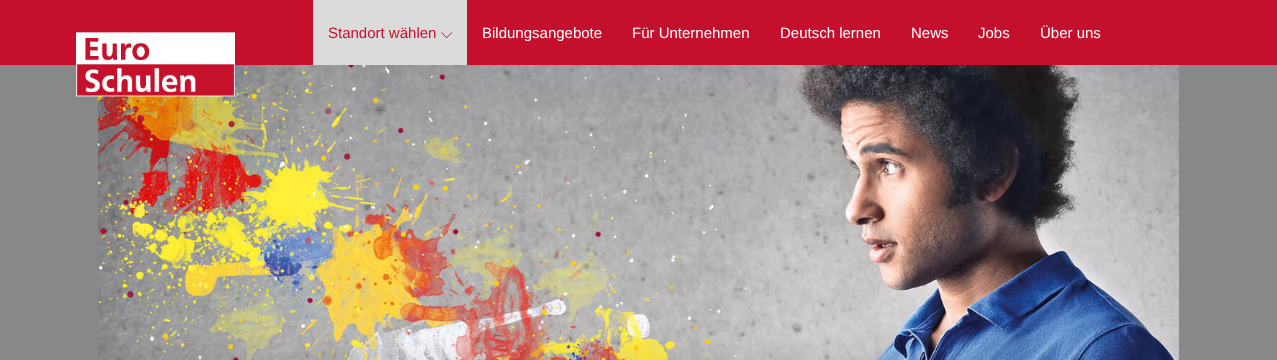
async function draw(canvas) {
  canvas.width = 1277;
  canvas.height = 360;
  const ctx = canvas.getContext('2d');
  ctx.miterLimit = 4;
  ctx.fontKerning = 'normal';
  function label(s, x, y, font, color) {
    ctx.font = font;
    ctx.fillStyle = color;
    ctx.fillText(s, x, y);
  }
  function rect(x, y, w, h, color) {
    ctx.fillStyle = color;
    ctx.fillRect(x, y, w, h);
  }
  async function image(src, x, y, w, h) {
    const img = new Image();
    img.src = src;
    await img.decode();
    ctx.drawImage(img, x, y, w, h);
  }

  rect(0, 0, 1277, 360, '#888');
  rect(0, 0, 1277, 65, '#c4102d');
  await image('assets/img2.png', 98, 65, 1081, 295);
  await image('assets/img1.png', 76, 32, 159, 65);
  rect(313, 0, 154, 65, '#dbdbdb');
  label('Standort wählen', 328, 38, '15px Liberation Sans', '#c4102d');
  label('⌵', 441, 38, '15px FreeSerif', '#c4102d');
  label('Bildungsangebote', 482, 38, '15px Liberation Sans', '#fff');
  label('Für Unternehmen', 632, 38, '15px Liberation Sans', '#fff');
  label('Deutsch lernen', 780, 38, '15px Liberation Sans', '#fff');
  label('News', 911, 38, '15px Liberation Sans', '#fff');
  label('Jobs', 978, 38, '15px Liberation Sans', '#fff');
  label('Über uns', 1040, 38, '15px Liberation Sans', '#fff');
}

draw(document.querySelector('canvas'));
